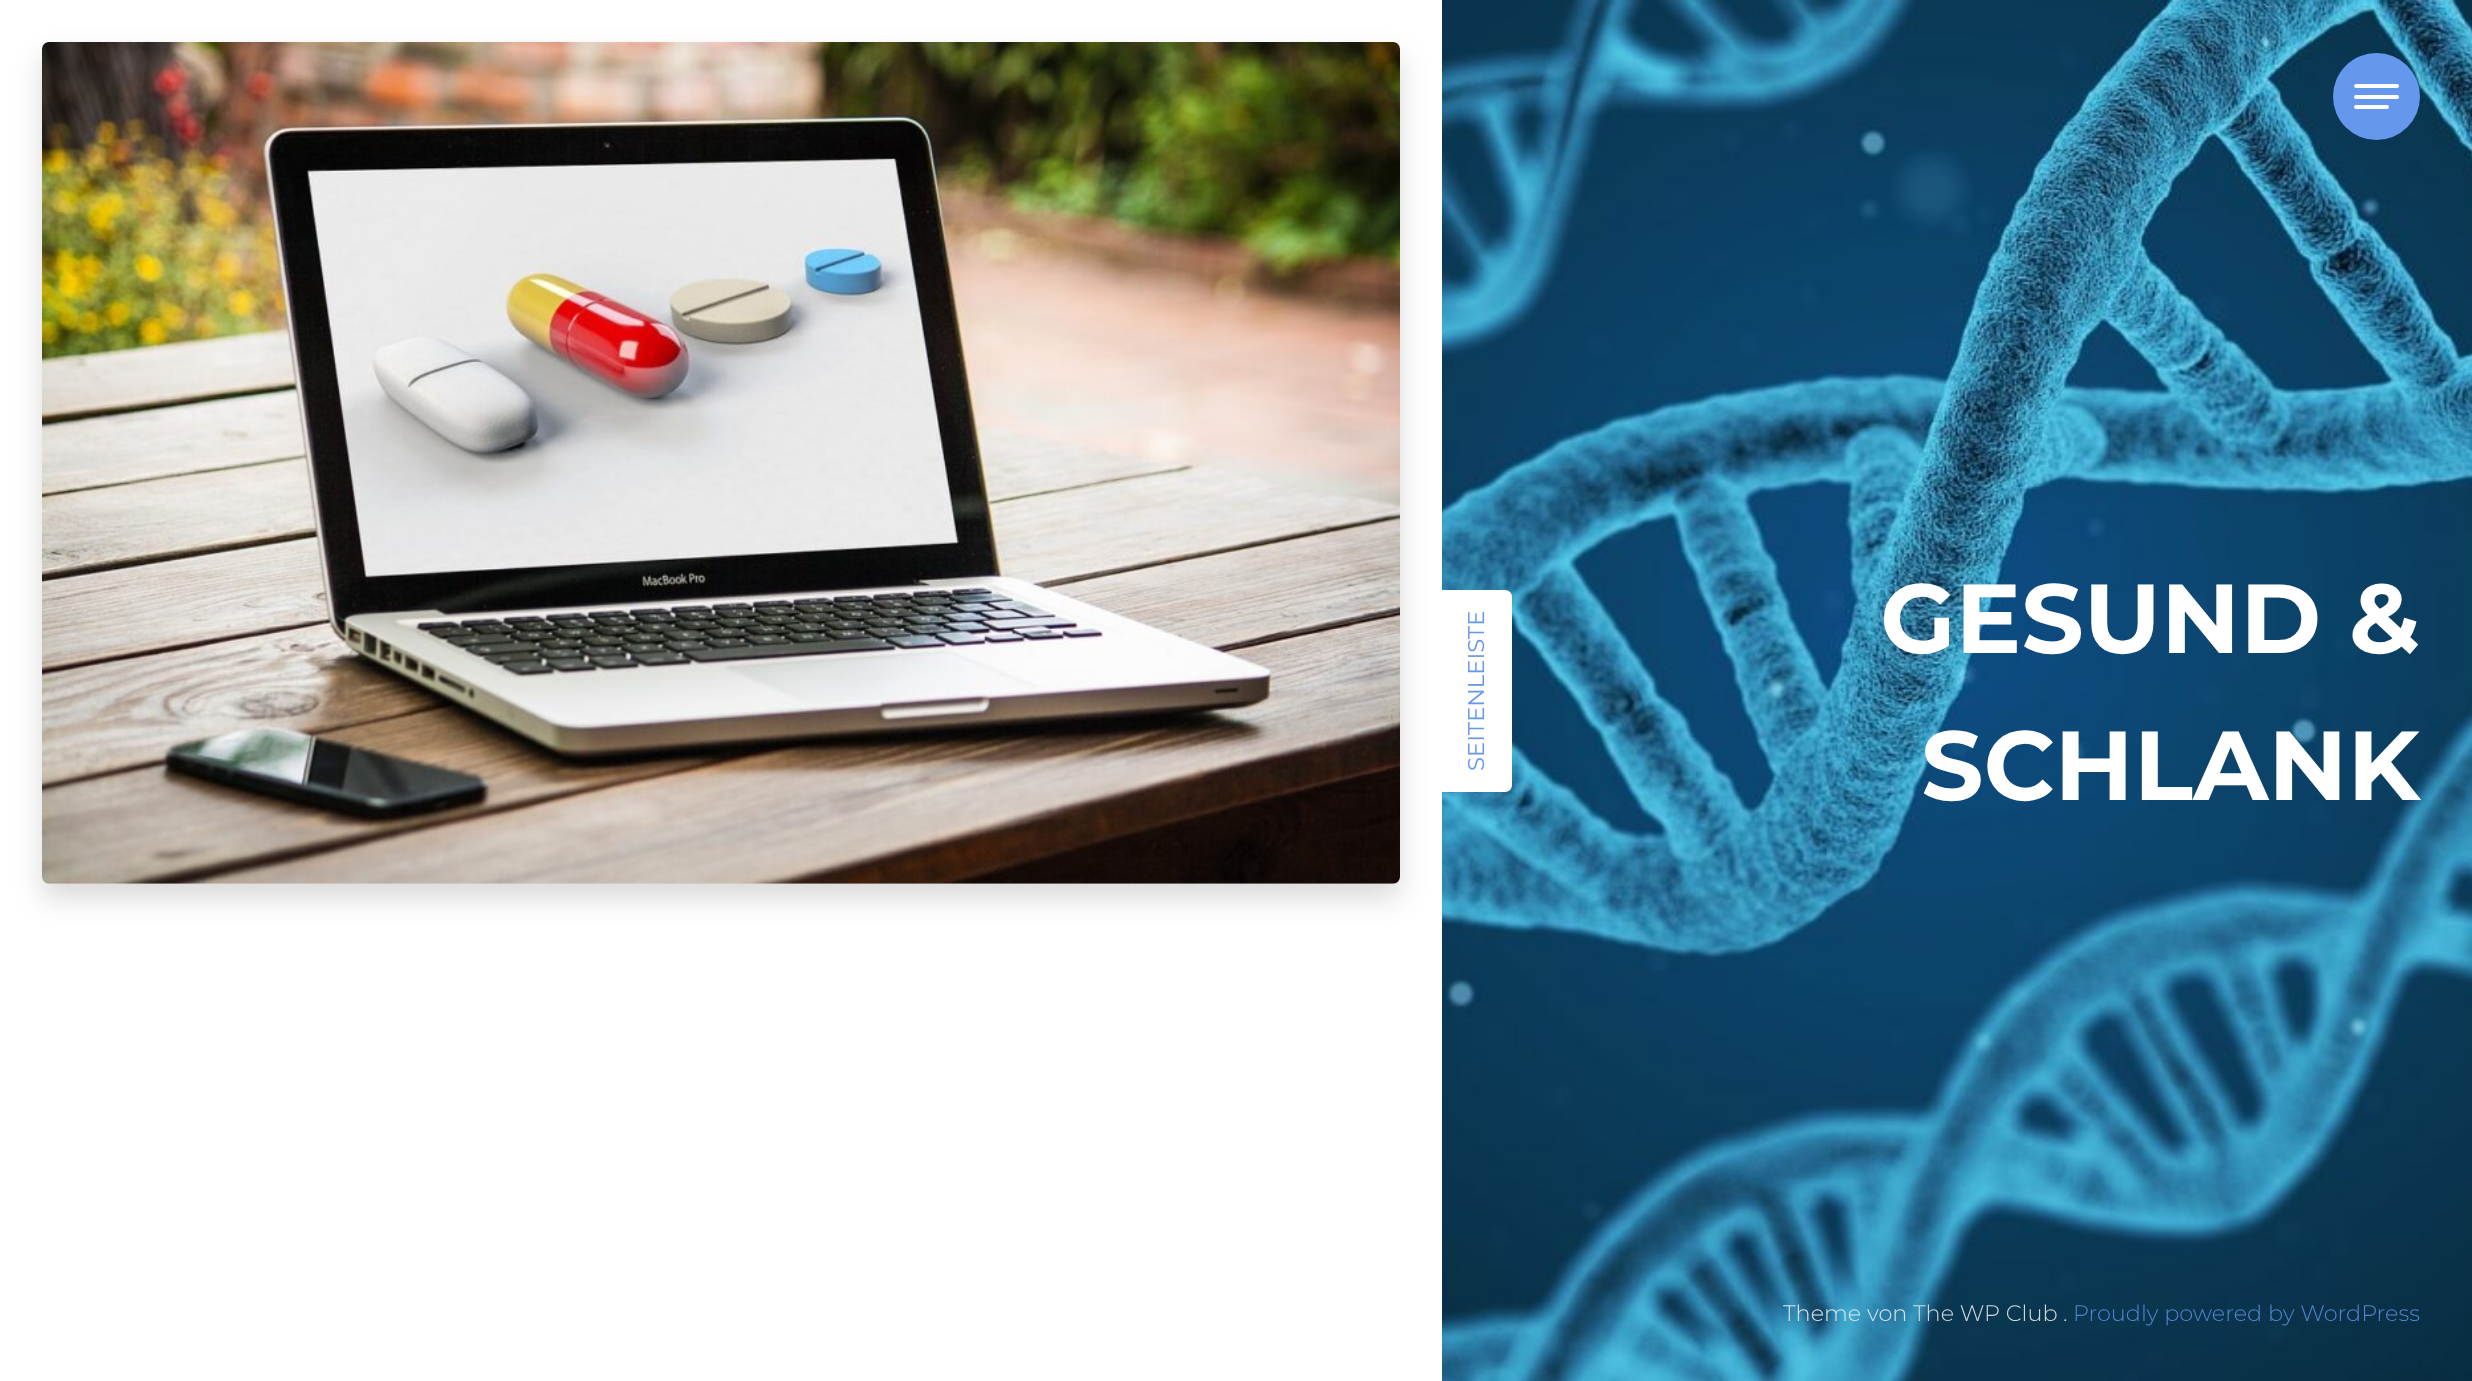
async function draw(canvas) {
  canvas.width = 2472;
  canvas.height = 1381;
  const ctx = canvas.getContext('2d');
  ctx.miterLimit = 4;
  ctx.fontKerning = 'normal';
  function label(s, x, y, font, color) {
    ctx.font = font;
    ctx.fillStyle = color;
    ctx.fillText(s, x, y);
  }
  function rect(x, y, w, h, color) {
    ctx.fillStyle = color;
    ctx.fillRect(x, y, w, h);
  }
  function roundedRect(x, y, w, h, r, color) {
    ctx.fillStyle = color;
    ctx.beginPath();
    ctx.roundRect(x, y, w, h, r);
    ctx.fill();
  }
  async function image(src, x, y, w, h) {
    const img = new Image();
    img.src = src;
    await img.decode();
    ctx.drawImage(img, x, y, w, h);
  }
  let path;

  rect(0, 0, 2472, 1381, '#fff');
  await image('assets/img2.png', 1442, 0, 1030, 1381);
  ctx.fillStyle = '#6597ed';
  ctx.beginPath();
  ctx.arc(2376.5, 96.5, 43.5, 0, 2 * Math.PI);
  ctx.fill();
  roundedRect(2354, 84, 45, 4, 2, '#fff');
  roundedRect(2354, 95, 45, 4, 2, '#fff');
  roundedRect(2354, 105, 35, 4, 2, '#fff');
  path = new Path2D('M1442 792V590H1505C1509 590 1512 593 1512 597V785C1512 789 1509 792 1505 792Z');
  ctx.fill(path);
  ctx.fillStyle = '#00000026';
  ctx.filter = 'blur(14px)';
  ctx.beginPath();
  ctx.roundRect(42, 56, 1358, 842, 7);
  ctx.fill();
  ctx.filter = 'none';
  await image('assets/img1.png', 42, 42, 1358, 842);
  ctx.font = '22.75px Montserrat';
  ctx.fillStyle = '#6597ed';
  ctx.save();
  ctx.translate(1484, 771);
  ctx.rotate(-90 * Math.PI / 180);
  ctx.fillText('SEITENLEISTE', 0, 0);
  ctx.restore();
  label('GESUND &', 1880, 653, 'bold 98px Montserrat', '#fff');
  label('SCHLANK', 1921, 800, 'bold 98px Montserrat', '#fff');
  label('Theme von', 1783, 1321, '300 22.4px Montserrat', '#d5e5ed');
  label('The WP Club', 1913, 1321, '300 22.4px Montserrat', '#cfd9de');
  label('.', 2063, 1321, '300 22.4px Montserrat', '#cfd9de');
  label('Proudly powered by WordPress', 2073, 1321, '300 22.4px Montserrat', '#5383cd');
}

draw(document.querySelector('canvas'));
